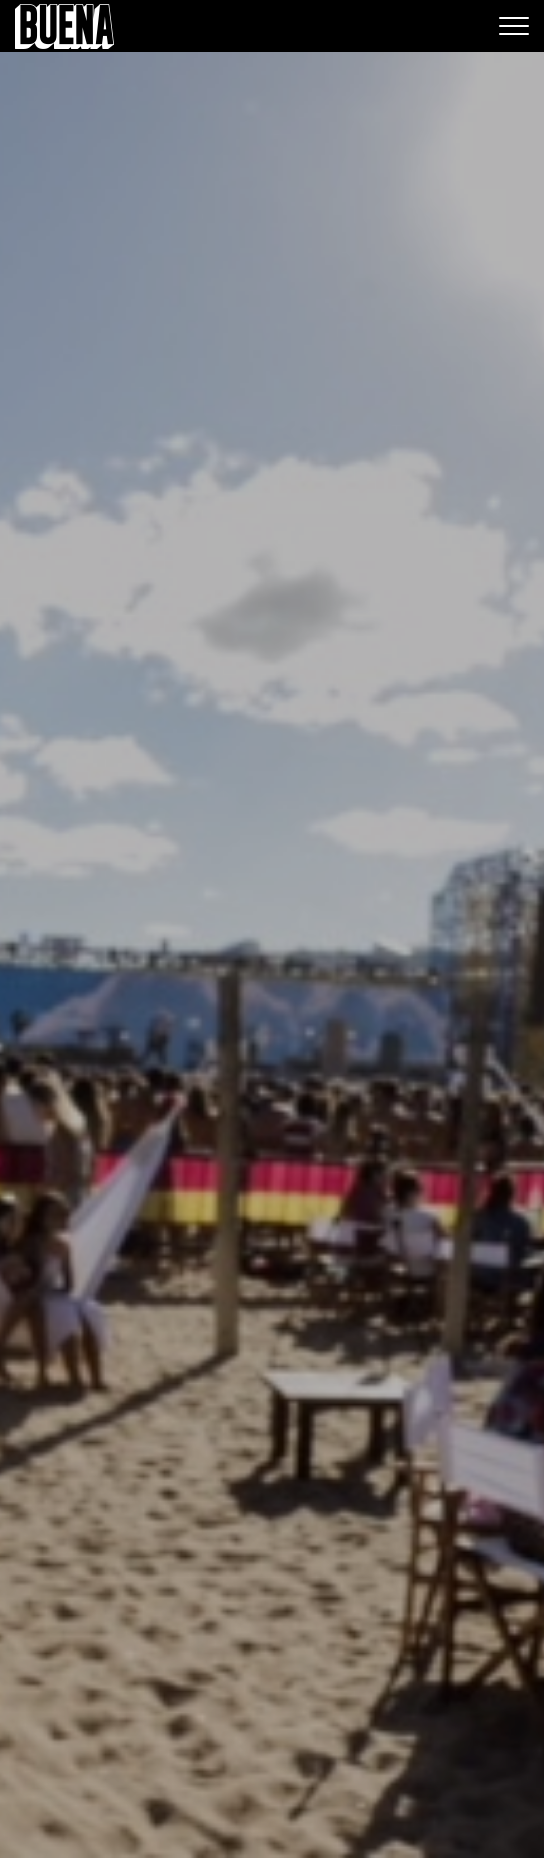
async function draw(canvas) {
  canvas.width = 544;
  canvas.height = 1858;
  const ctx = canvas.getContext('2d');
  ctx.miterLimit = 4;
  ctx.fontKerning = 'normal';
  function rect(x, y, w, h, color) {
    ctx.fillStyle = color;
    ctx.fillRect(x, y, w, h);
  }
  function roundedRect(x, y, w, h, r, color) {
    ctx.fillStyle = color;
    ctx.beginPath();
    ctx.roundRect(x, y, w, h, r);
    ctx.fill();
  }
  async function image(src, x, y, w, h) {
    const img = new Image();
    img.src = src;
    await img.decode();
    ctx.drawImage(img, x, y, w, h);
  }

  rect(0, 0, 544, 1858, '#fff');
  rect(0, 0, 544, 52, '#000');
  await image('assets/img1.png', 15, 4, 99, 45);
  roundedRect(499, 17, 30, 2, 1, '#fff');
  roundedRect(499, 25, 30, 2, 1, '#fff');
  roundedRect(499, 33, 30, 2, 1, '#fff');
  await image('assets/img2.png', 0, 52, 544, 1806);
}

draw(document.querySelector('canvas'));
